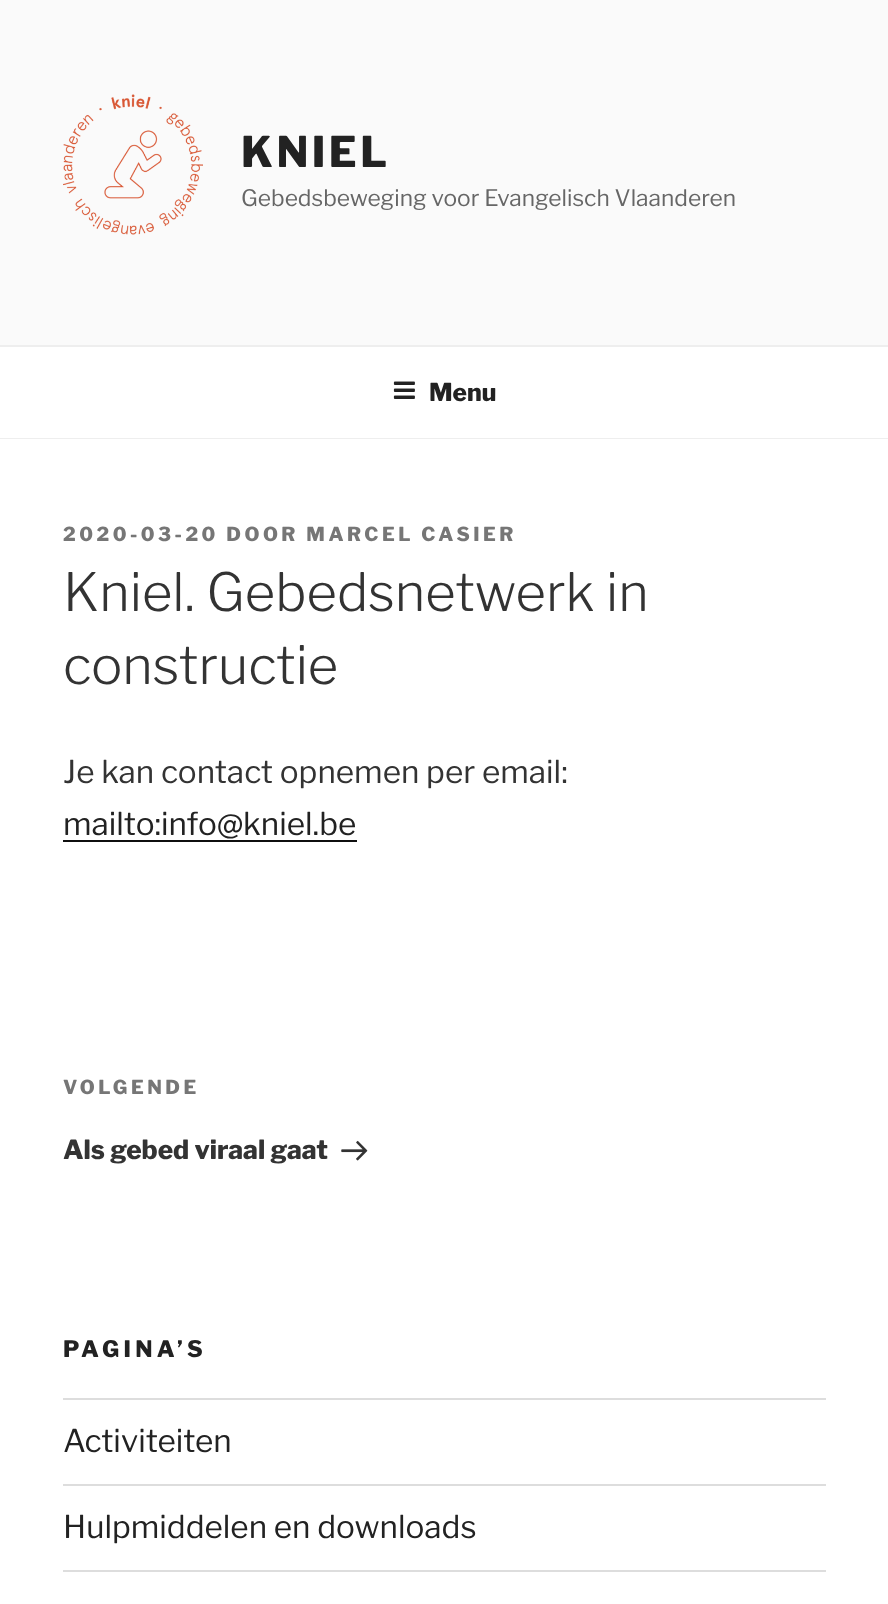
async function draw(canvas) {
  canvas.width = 888;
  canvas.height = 1604;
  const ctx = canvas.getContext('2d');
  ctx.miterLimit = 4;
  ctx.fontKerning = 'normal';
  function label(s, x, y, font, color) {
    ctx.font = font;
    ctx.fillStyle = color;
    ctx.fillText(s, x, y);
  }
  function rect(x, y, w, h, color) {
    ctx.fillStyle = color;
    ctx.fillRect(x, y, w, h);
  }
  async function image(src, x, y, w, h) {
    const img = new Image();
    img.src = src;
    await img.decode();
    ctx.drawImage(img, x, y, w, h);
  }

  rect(0, 0, 888, 1604, '#fafafa');
  await image('assets/img1.png', 63, 94, 140, 141);
  ctx.letterSpacing = '3.5px';
  label('KNIEL', 241, 167, '100 42px Libre Franklin', '#222');
  ctx.letterSpacing = '0px';
  label('Gebedsbeweging voor Evangelisch Vlaanderen', 241, 206, '100 22.75px "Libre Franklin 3"', '#666');
  rect(0, 347, 888, 91, '#fff');
  rect(0, 345, 888, 2, '#eee');
  rect(0, 438, 888, 1, '#eee');
  await image('assets/img2.png', 393, 381, 22, 18);
  label('Menu', 429, 401, '100 24.5px Libre Franklin', '#222');
  rect(0, 439, 888, 1165, '#fff');
  ctx.letterSpacing = '3.5px';
  label('2020-03-20 DOOR MARCEL CASIER', 63, 541, '100 19.25px Libre Franklin', '#767676');
  ctx.letterSpacing = '0px';
  label('Kniel. Gebedsnetwerk in', 63, 611, '100 52.5px "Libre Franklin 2"', '#333');
  label('constructie', 63, 684, '100 52.5px "Libre Franklin 2"', '#333');
  label('Je kan contact opnemen per email:', 63, 783, '100 31.5px "Libre Franklin 3"', '#333');
  label('mailto:info@kniel.be', 63, 835, '100 31.5px "Libre Franklin 3"', '#222');
  rect(63, 840, 294, 2, '#0f0f0f');
  ctx.letterSpacing = '3.5px';
  label('VOLGENDE', 63, 1094, '100 19.25px Libre Franklin', '#767676');
  ctx.letterSpacing = '0px';
  label('Als gebed viraal gaat', 63, 1159, '100 26.25px Libre Franklin', '#333');
  await image('assets/img3.png', 341, 1140, 27, 21);
  ctx.letterSpacing = '4.25px';
  label('PAGINA’S', 63, 1357, '100 22.75px Libre Franklin', '#222');
  rect(63, 1398, 763, 2, '#ddd');
  rect(63, 1484, 763, 2, '#ddd');
  ctx.letterSpacing = '0px';
  label('Activiteiten', 63, 1452, '100 31.5px "Libre Franklin 3"', '#222');
  rect(63, 1570, 763, 2, '#ddd');
  label('Hulpmiddelen en downloads', 63, 1538, '100 31.5px "Libre Franklin 3"', '#222');
}

draw(document.querySelector('canvas'));
